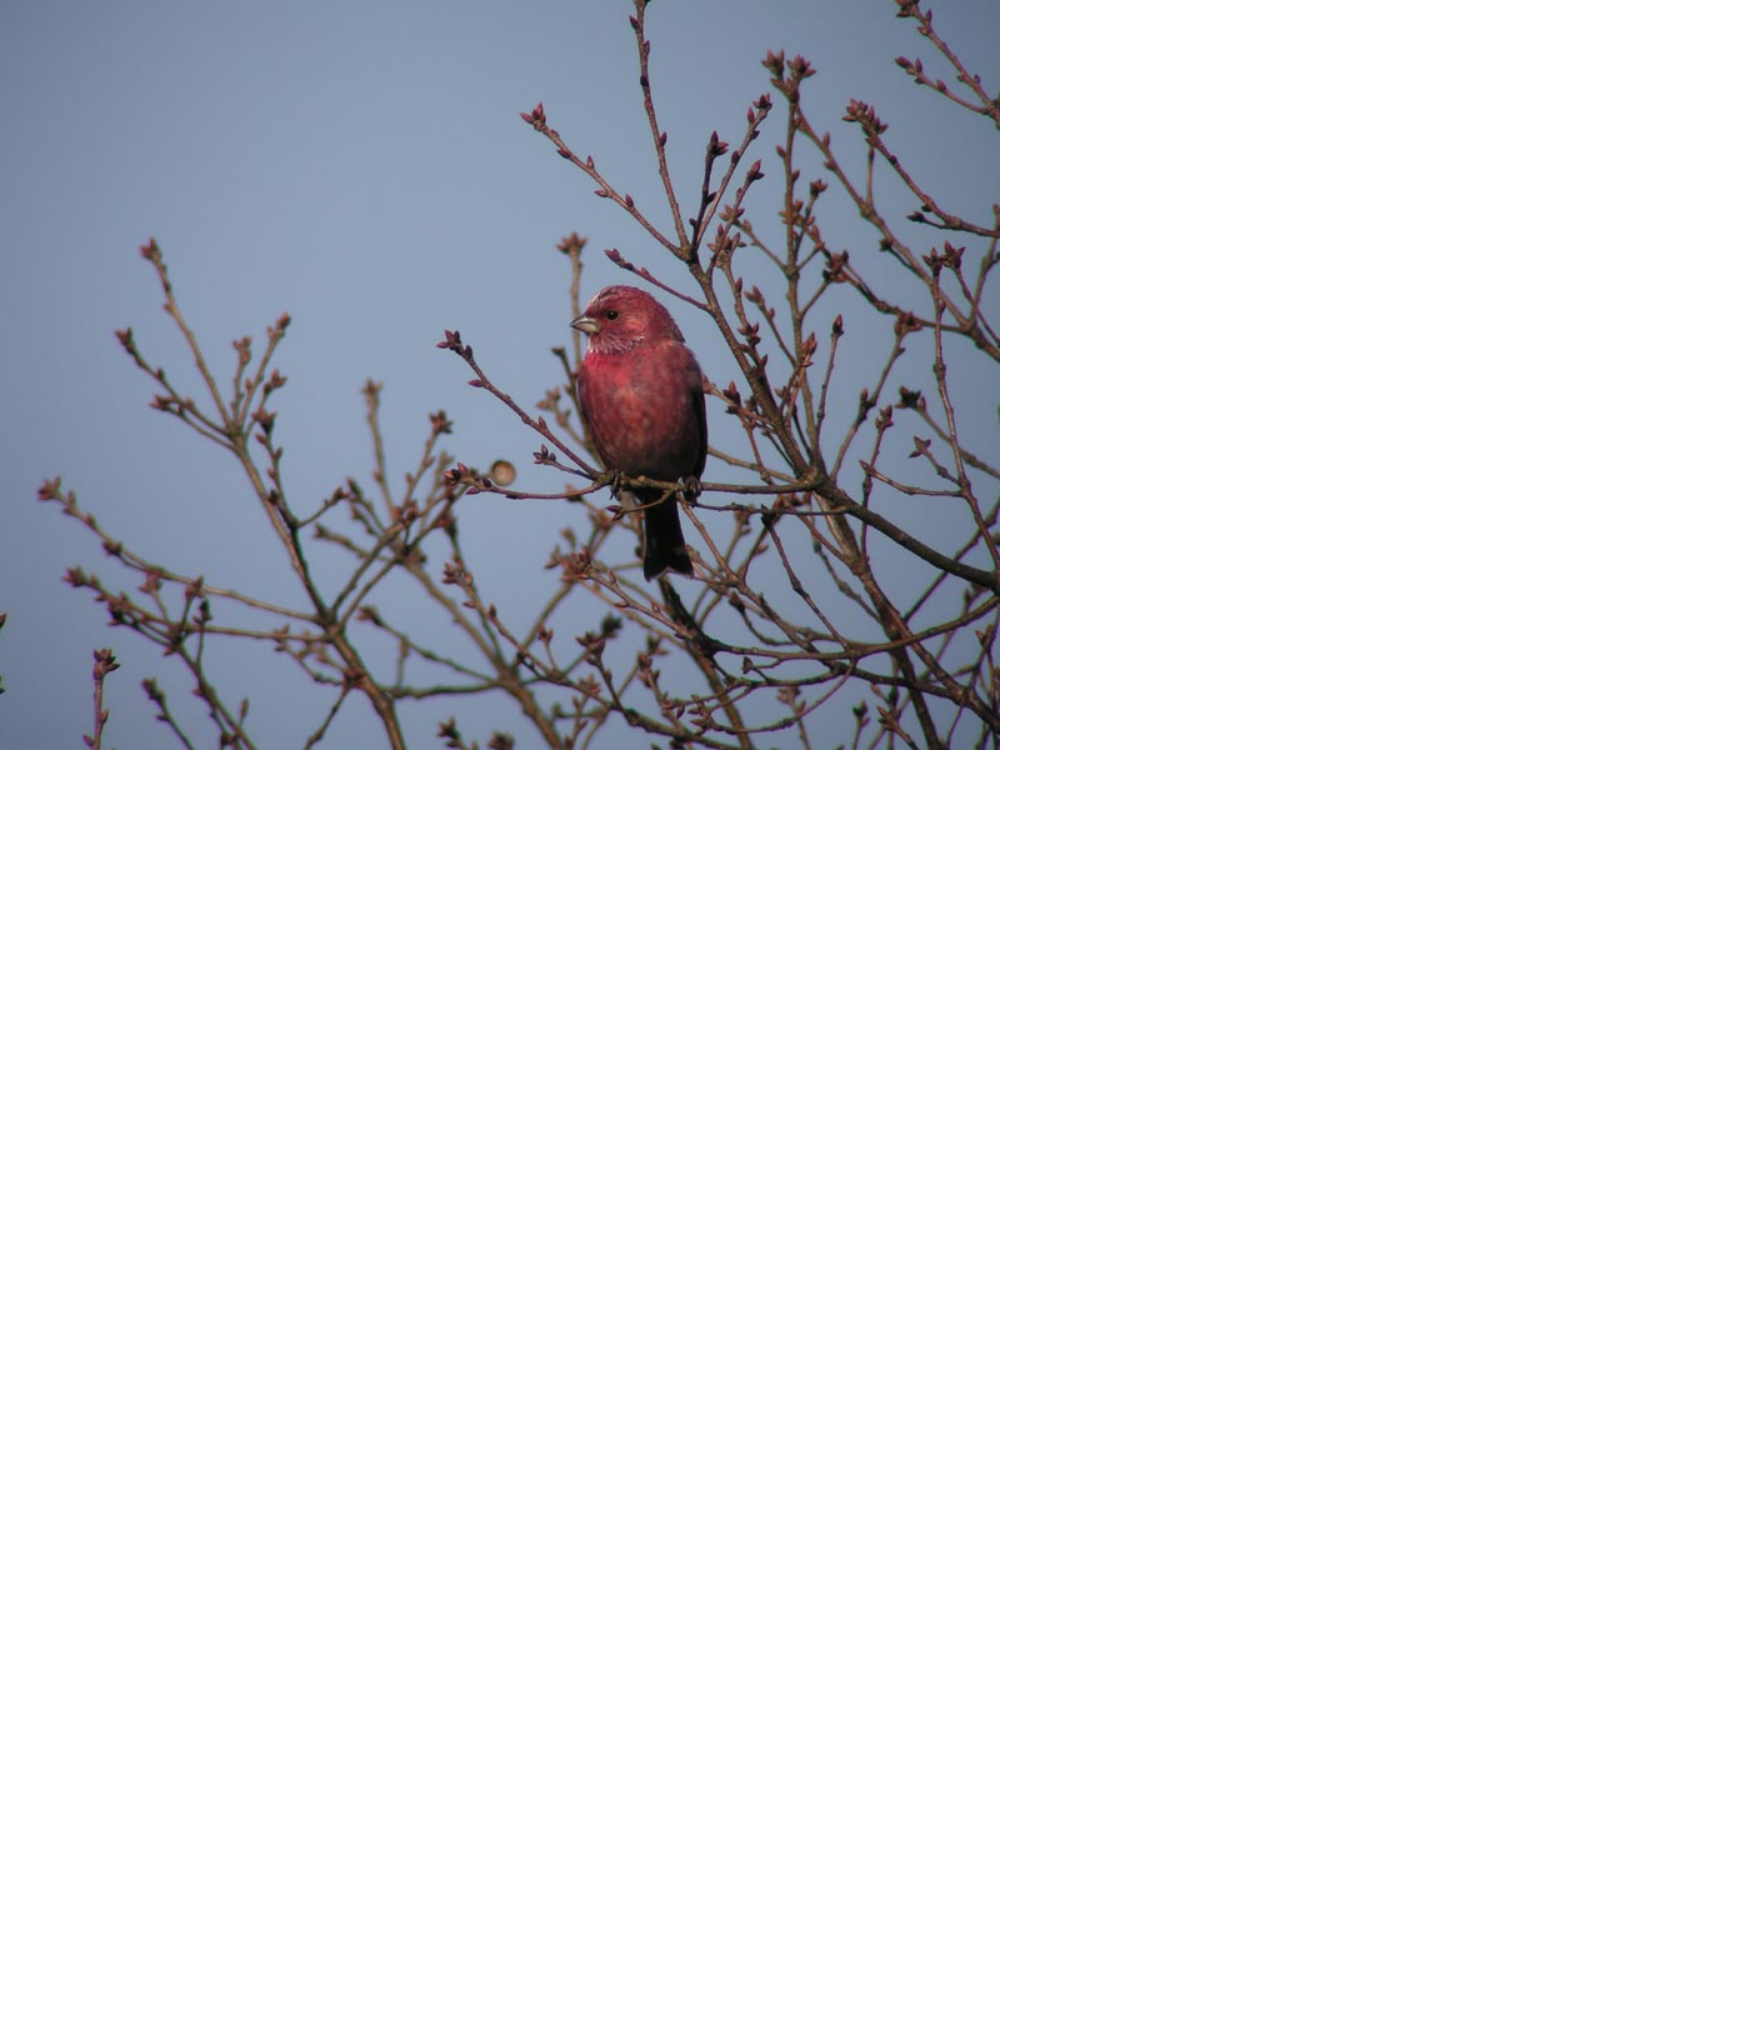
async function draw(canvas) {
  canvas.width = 1747;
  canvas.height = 2032;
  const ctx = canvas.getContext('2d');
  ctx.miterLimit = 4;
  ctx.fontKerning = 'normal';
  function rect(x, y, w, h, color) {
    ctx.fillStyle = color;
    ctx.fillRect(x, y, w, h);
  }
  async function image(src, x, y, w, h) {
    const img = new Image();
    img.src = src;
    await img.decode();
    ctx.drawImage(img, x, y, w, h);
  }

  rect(0, 0, 1747, 2032, '#fff');
  await image('assets/img1.png', 0, 0, 1000, 750);
}

draw(document.querySelector('canvas'));
